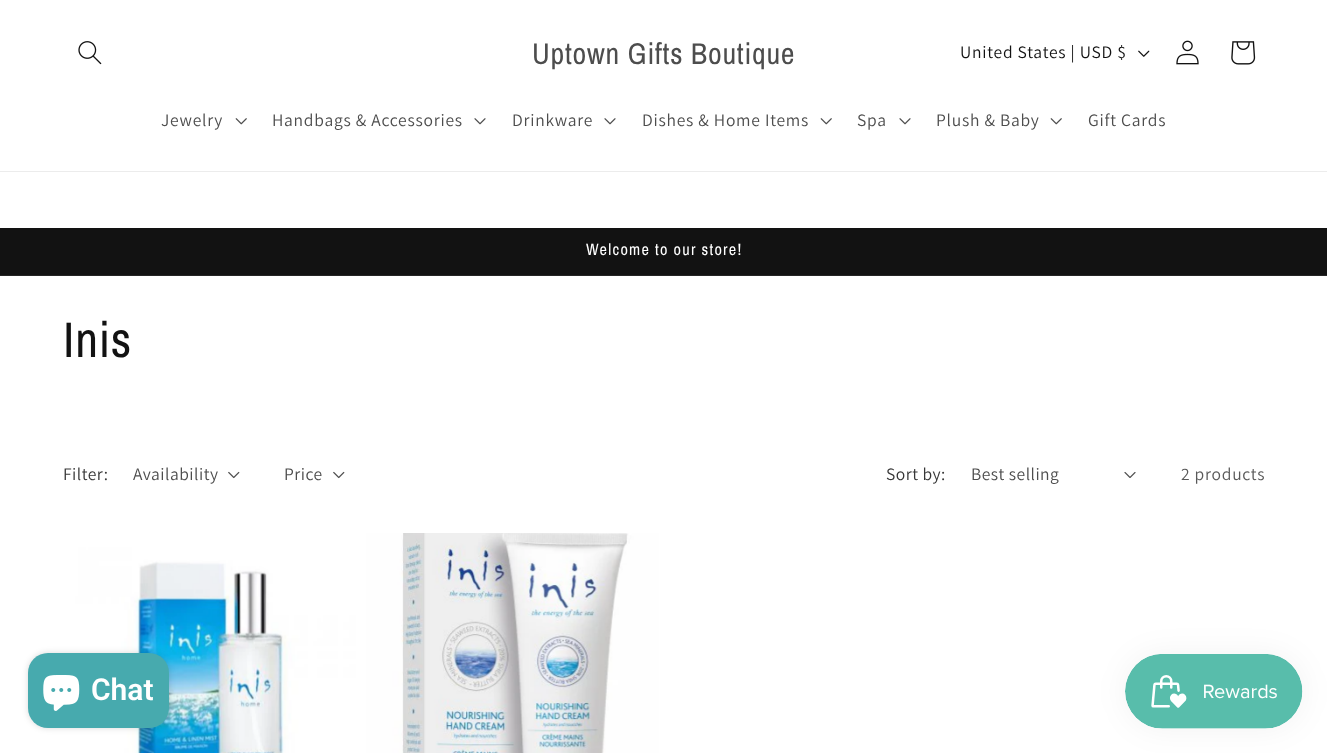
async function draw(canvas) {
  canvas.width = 1327;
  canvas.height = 753;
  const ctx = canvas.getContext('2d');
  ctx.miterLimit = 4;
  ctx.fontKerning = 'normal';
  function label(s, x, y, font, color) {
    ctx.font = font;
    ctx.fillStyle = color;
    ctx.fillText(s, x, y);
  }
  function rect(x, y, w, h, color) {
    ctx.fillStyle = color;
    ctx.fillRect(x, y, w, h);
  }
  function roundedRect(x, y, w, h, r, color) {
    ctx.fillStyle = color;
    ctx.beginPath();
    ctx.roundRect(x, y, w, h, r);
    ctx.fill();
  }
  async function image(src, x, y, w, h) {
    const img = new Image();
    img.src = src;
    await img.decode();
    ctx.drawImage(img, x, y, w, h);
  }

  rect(0, 0, 1327, 753, '#fff');
  rect(0, 171, 1327, 1, '#ececec');
  await image('assets/img1.png', 78, 41, 24, 24);
  ctx.letterSpacing = '0.75px';
  label('Uptown Gifts Boutique', 532, 64, '30px Archivo Narrow', '#4d4d4d');
  label('United States | USD $', 960, 58, '17.5px Assistant', '#121212');
  await image('assets/img2.png', 1138, 50, 12, 7);
  await image('assets/img3.png', 1176, 40, 23, 25);
  await image('assets/img4.png', 1231, 41, 25, 24);
  label('Jewelry', 161, 126, '17.5px Assistant', '#4d4d4d');
  await image('assets/img5.png', 235, 118, 12, 7);
  label('Handbags & Accessories', 272, 126, '17.5px Assistant', '#4d4d4d');
  await image('assets/img6.png', 474, 118, 12, 7);
  label('Drinkware', 512, 126, '17.5px Assistant', '#4d4d4d');
  await image('assets/img6.png', 604, 118, 12, 7);
  label('Dishes & Home Items', 642, 126, '17.5px Assistant', '#4d4d4d');
  await image('assets/img5.png', 820, 118, 12, 7);
  label('Spa', 857, 126, '17.5px Assistant', '#4d4d4d');
  await image('assets/img6.png', 899, 118, 12, 7);
  label('Plush & Baby', 936, 126, '17.5px Assistant', '#4d4d4d');
  await image('assets/img5.png', 1050, 118, 12, 7);
  label('Gift Cards', 1088, 126, '17.5px Assistant', '#4d4d4d');
  rect(0, 228, 1327, 47, '#121212');
  rect(0, 275, 1327, 1, '#252525');
  ctx.letterSpacing = '1.25px';
  label('Welcome to our store!', 586, 255, '16.25px Archivo Narrow', '#fff');
  ctx.letterSpacing = '0.75px';
  label('Inis', 63, 357, '50px Archivo Narrow', '#121212');
  ctx.letterSpacing = '0.5px';
  label('Filter:', 63, 480, '17.5px Assistant', '#363636');
  label('Availability', 133, 480, '17.5px Assistant', '#4d4d4d');
  await image('assets/img7.png', 228, 471, 12, 8);
  label('Price', 284, 480, '17.5px Assistant', '#4d4d4d');
  await image('assets/img7.png', 333, 471, 12, 8);
  label('Sort by:', 886, 480, '17.5px Assistant', '#363636');
  label('Best selling', 971, 480, '17.5px Assistant', '#4d4d4d');
  await image('assets/img8.png', 1124, 472, 12, 6);
  ctx.letterSpacing = '0.75px';
  label('2 products', 1181, 480, '17.5px Assistant', '#595959');
  await image('assets/img9.png', 63, 533, 293, 220);
  await image('assets/img10.png', 366, 533, 293, 220);
  ctx.fillStyle = '#00000026';
  ctx.filter = 'blur(3px)';
  ctx.beginPath();
  ctx.roundRect(28, 653, 141, 75, 20);
  ctx.fill();
  ctx.filter = 'none';
  roundedRect(28, 653, 141, 75, 20, '#47aaae');
  await image('assets/img11.png', 43, 675, 37, 36);
  ctx.letterSpacing = '0px';
  label('Chat', 91, 700, '600 30px Roboto', '#fff');
  ctx.fillStyle = '#0000000d';
  ctx.filter = 'blur(15.5px)';
  ctx.beginPath();
  ctx.roundRect(1125, 654, 178, 75, 37.5);
  ctx.fill();
  ctx.filter = 'none';
  await image('assets/img12.png', 1125, 654, 178, 75);
}

draw(document.querySelector('canvas'));
